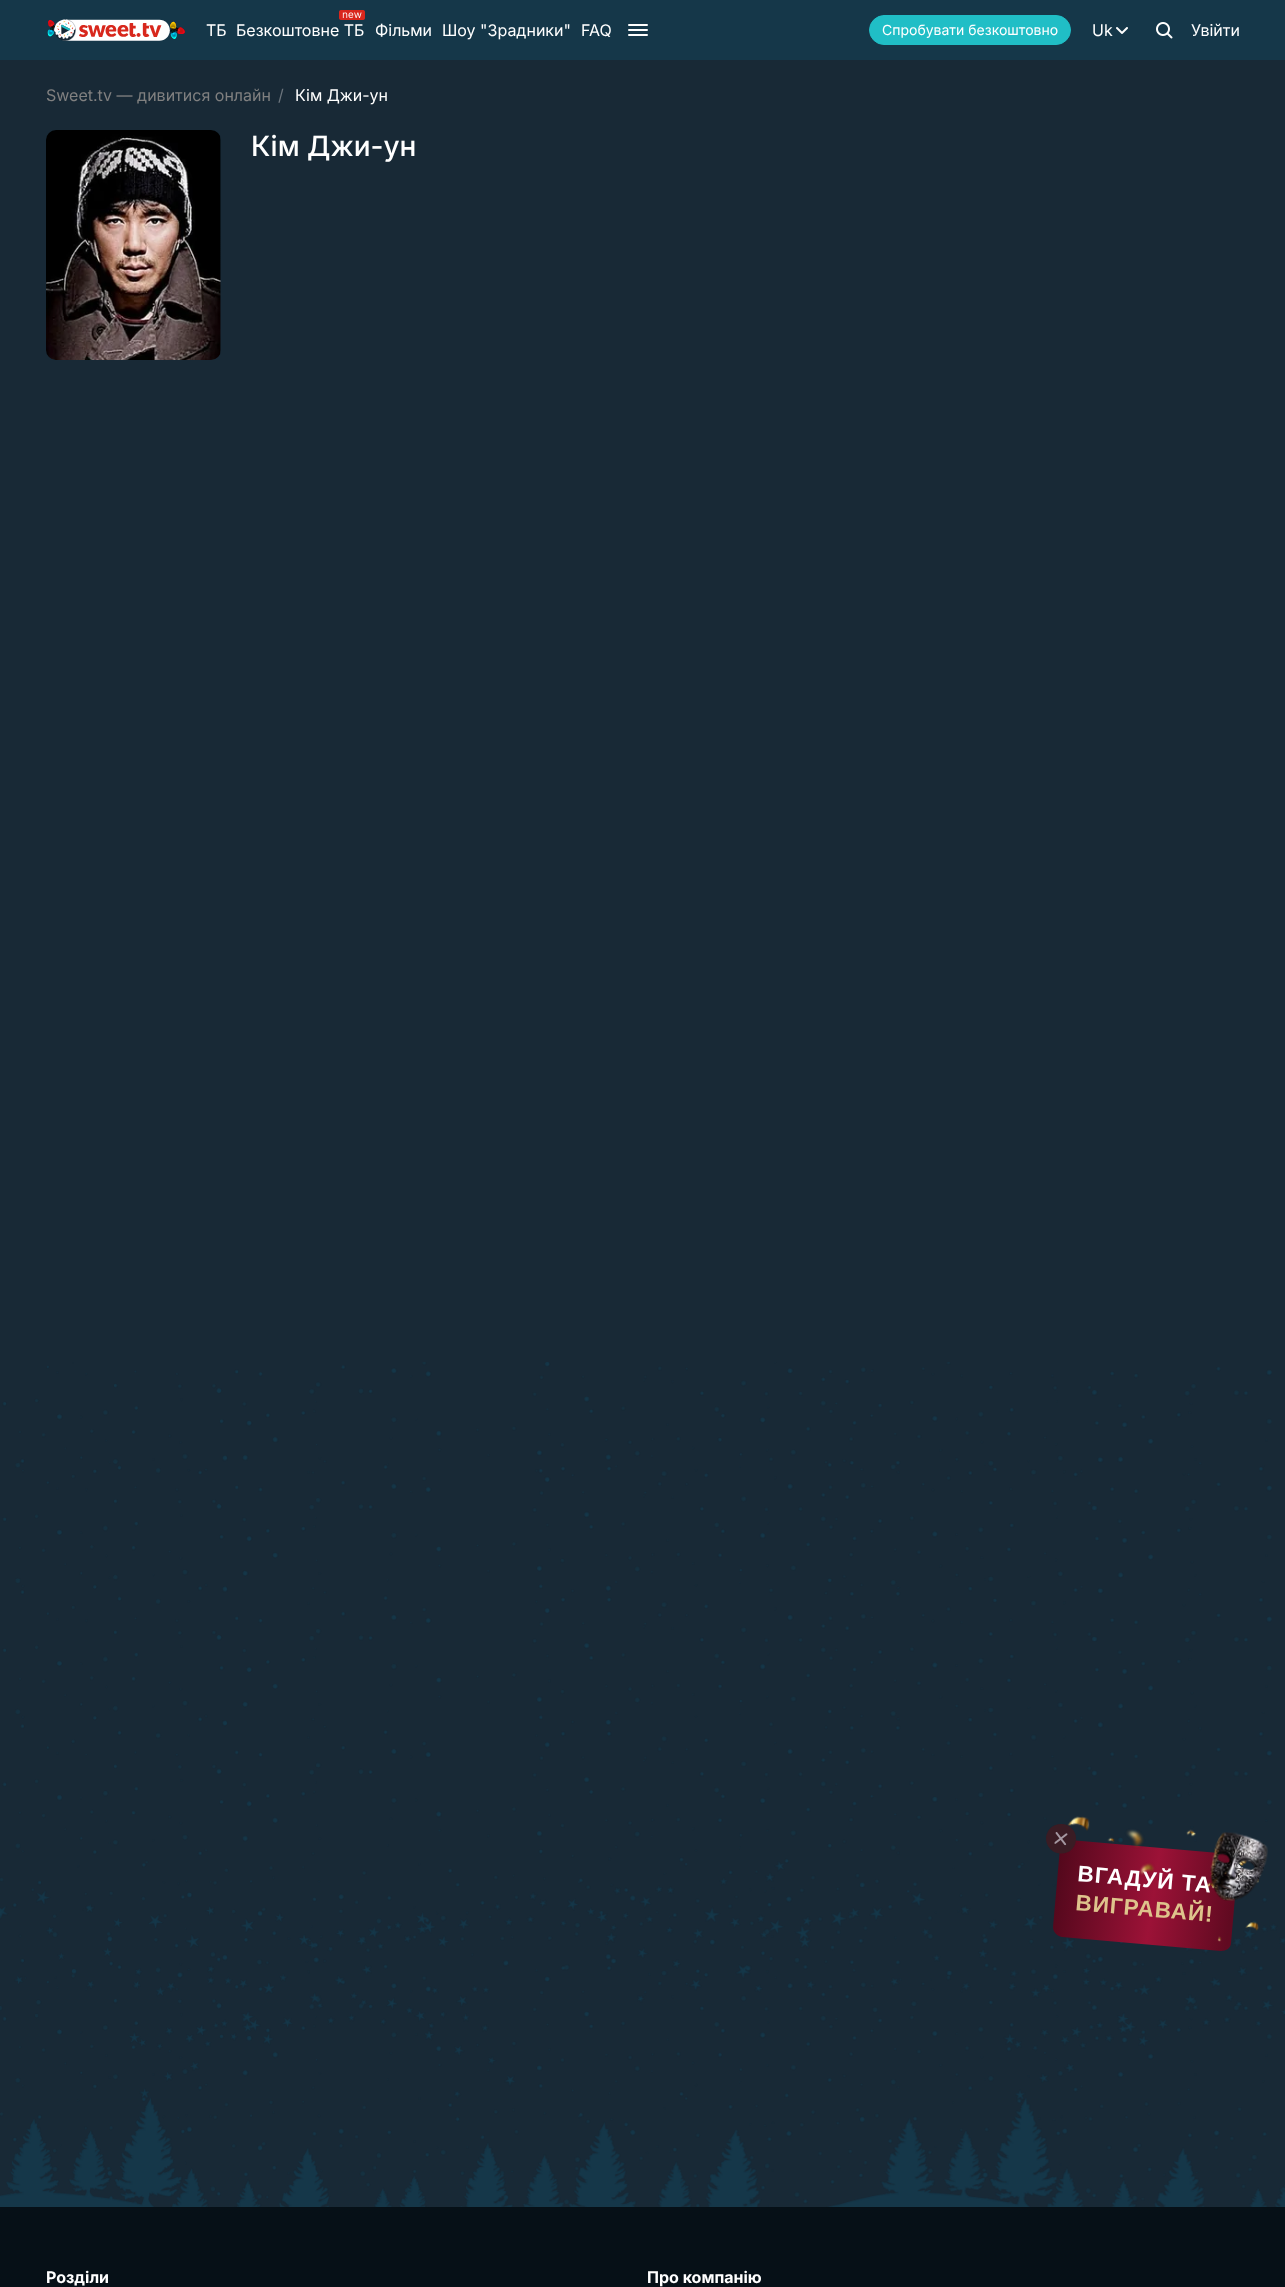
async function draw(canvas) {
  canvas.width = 1285;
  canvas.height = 2287;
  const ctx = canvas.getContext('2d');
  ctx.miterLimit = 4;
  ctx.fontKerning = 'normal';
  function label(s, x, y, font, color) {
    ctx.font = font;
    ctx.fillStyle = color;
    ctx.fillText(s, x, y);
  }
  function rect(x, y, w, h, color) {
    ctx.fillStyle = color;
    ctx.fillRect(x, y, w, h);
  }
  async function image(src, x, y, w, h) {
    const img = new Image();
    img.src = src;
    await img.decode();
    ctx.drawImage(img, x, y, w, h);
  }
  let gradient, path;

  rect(0, 0, 1285, 2287, '#182936');
  rect(0, 0, 1285, 60, '#153749');
  await image('assets/img1.png', 47, 19, 138, 22);
  label('ТБ', 206, 36, '16px Inter', '#fff');
  await image('assets/img2.png', 339, 10, 26, 10);
  label('Безкоштовне ТБ', 236, 36, '16px Inter', '#fff');
  label('Фільми', 375, 36, '16px Inter', '#fff');
  label('Шоу "Зрадники"', 442, 36, '16px Inter', '#fff');
  label('FAQ', 581, 36, '16px Inter', '#fff');
  path = new Path2D('M629 25H647M629 30H647M629 35H647');
  ctx.strokeStyle = '#fff';
  ctx.lineWidth = 2;
  ctx.lineCap = 'round';
  ctx.stroke(path);
  ctx.fillStyle = '#20bec6';
  ctx.beginPath();
  ctx.roundRect(869.5, 15.5, 201, 29, 14.5);
  ctx.fill();
  ctx.strokeStyle = '#20bec6';
  ctx.lineWidth = 1;
  ctx.stroke();
  label('Спробувати безкоштовно', 882, 35, '14px Inter', '#fff');
  label('Uk', 1092, 36, '16px Inter', '#fff');
  await image('assets/img3.png', 1116, 27, 12, 7);
  await image('assets/img4.png', 1156, 22, 17, 17);
  label('Увійти', 1191, 36, '16px Inter', '#fff');
  label('Sweet.tv — дивитися онлайн', 46, 101, '16px Inter', '#808080');
  label('/', 278, 101, '16px Inter', '#6c757d');
  label('Кім Джи-ун', 295, 101, '16px Inter', '#fff');
  gradient = ctx.createLinearGradient(188, 503, 703, -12);
  gradient.addColorStop(0.25, '#1a2d3b');
  gradient.addColorStop(0.45, '#173141');
  gradient.addColorStop(0.6, '#1a2d3b');
  ctx.fillStyle = gradient;
  ctx.beginPath();
  ctx.roundRect(46, 130, 175, 230, 10);
  ctx.fill();
  await image('assets/img5.png', 46, 130, 175, 230);
  label('Кім Джи-ун', 251, 156, '500 28px Inter', '#fff');
  await image('assets/img6.png', 0, 1362, 1285, 845);
  gradient = ctx.createLinearGradient(1055, 1882, 1237, 1908);
  gradient.addColorStop(0, '#53081c');
  gradient.addColorStop(0.54, '#9c1237');
  gradient.addColorStop(0.97, '#610a21');
  ctx.fillStyle = gradient;
  path = new Path2D('M1070 1840L1230 1854C1235 1854 1239 1858 1238 1863L1231 1943C1231 1948 1226 1951 1221 1951L1062 1937C1057 1936 1053 1932 1053 1927L1060 1848C1061 1843 1065 1839 1070 1840Z');
  ctx.fill(path);
  ctx.letterSpacing = '1px';
  ctx.font = 'bold 22.5px Liberation Sans';
  ctx.fillStyle = '#fff';
  ctx.save();
  ctx.translate(1077, 1881);
  ctx.rotate(5 * Math.PI / 180);
  ctx.fillText('ВГАДУЙ ТА', 0, 0);
  ctx.restore();
  ctx.fillStyle = '#dec38c';
  ctx.save();
  ctx.translate(1075, 1910);
  ctx.rotate(5 * Math.PI / 180);
  ctx.fillText('ВИГРАВАЙ!', 0, 0);
  ctx.restore();
  await image('assets/img8.png', 1067, 1816, 192, 126);
  ctx.fillStyle = '#3a1c24';
  path = new Path2D('M1062.5 1824C1070.5 1824.5 1077 1832 1076 1840C1075.5 1848.5 1068 1854.5 1060 1853.5C1051.5 1853 1045.5 1845.5 1046 1837.5C1047 1829 1054 1823 1062.5 1824Z');
  ctx.fill(path);
  await image('assets/img7.png', 1054, 1832, 14, 14);
  await image('assets/img9.png', 1210, 1832, 58, 69);
  rect(0, 2207, 1285, 80, '#061017');
  ctx.letterSpacing = '0px';
  label('Розділи', 46, 2283, 'bold 16px Inter', '#fff');
  label('Про компанію', 647, 2283, 'bold 16px Inter', '#fff');
}

draw(document.querySelector('canvas'));
